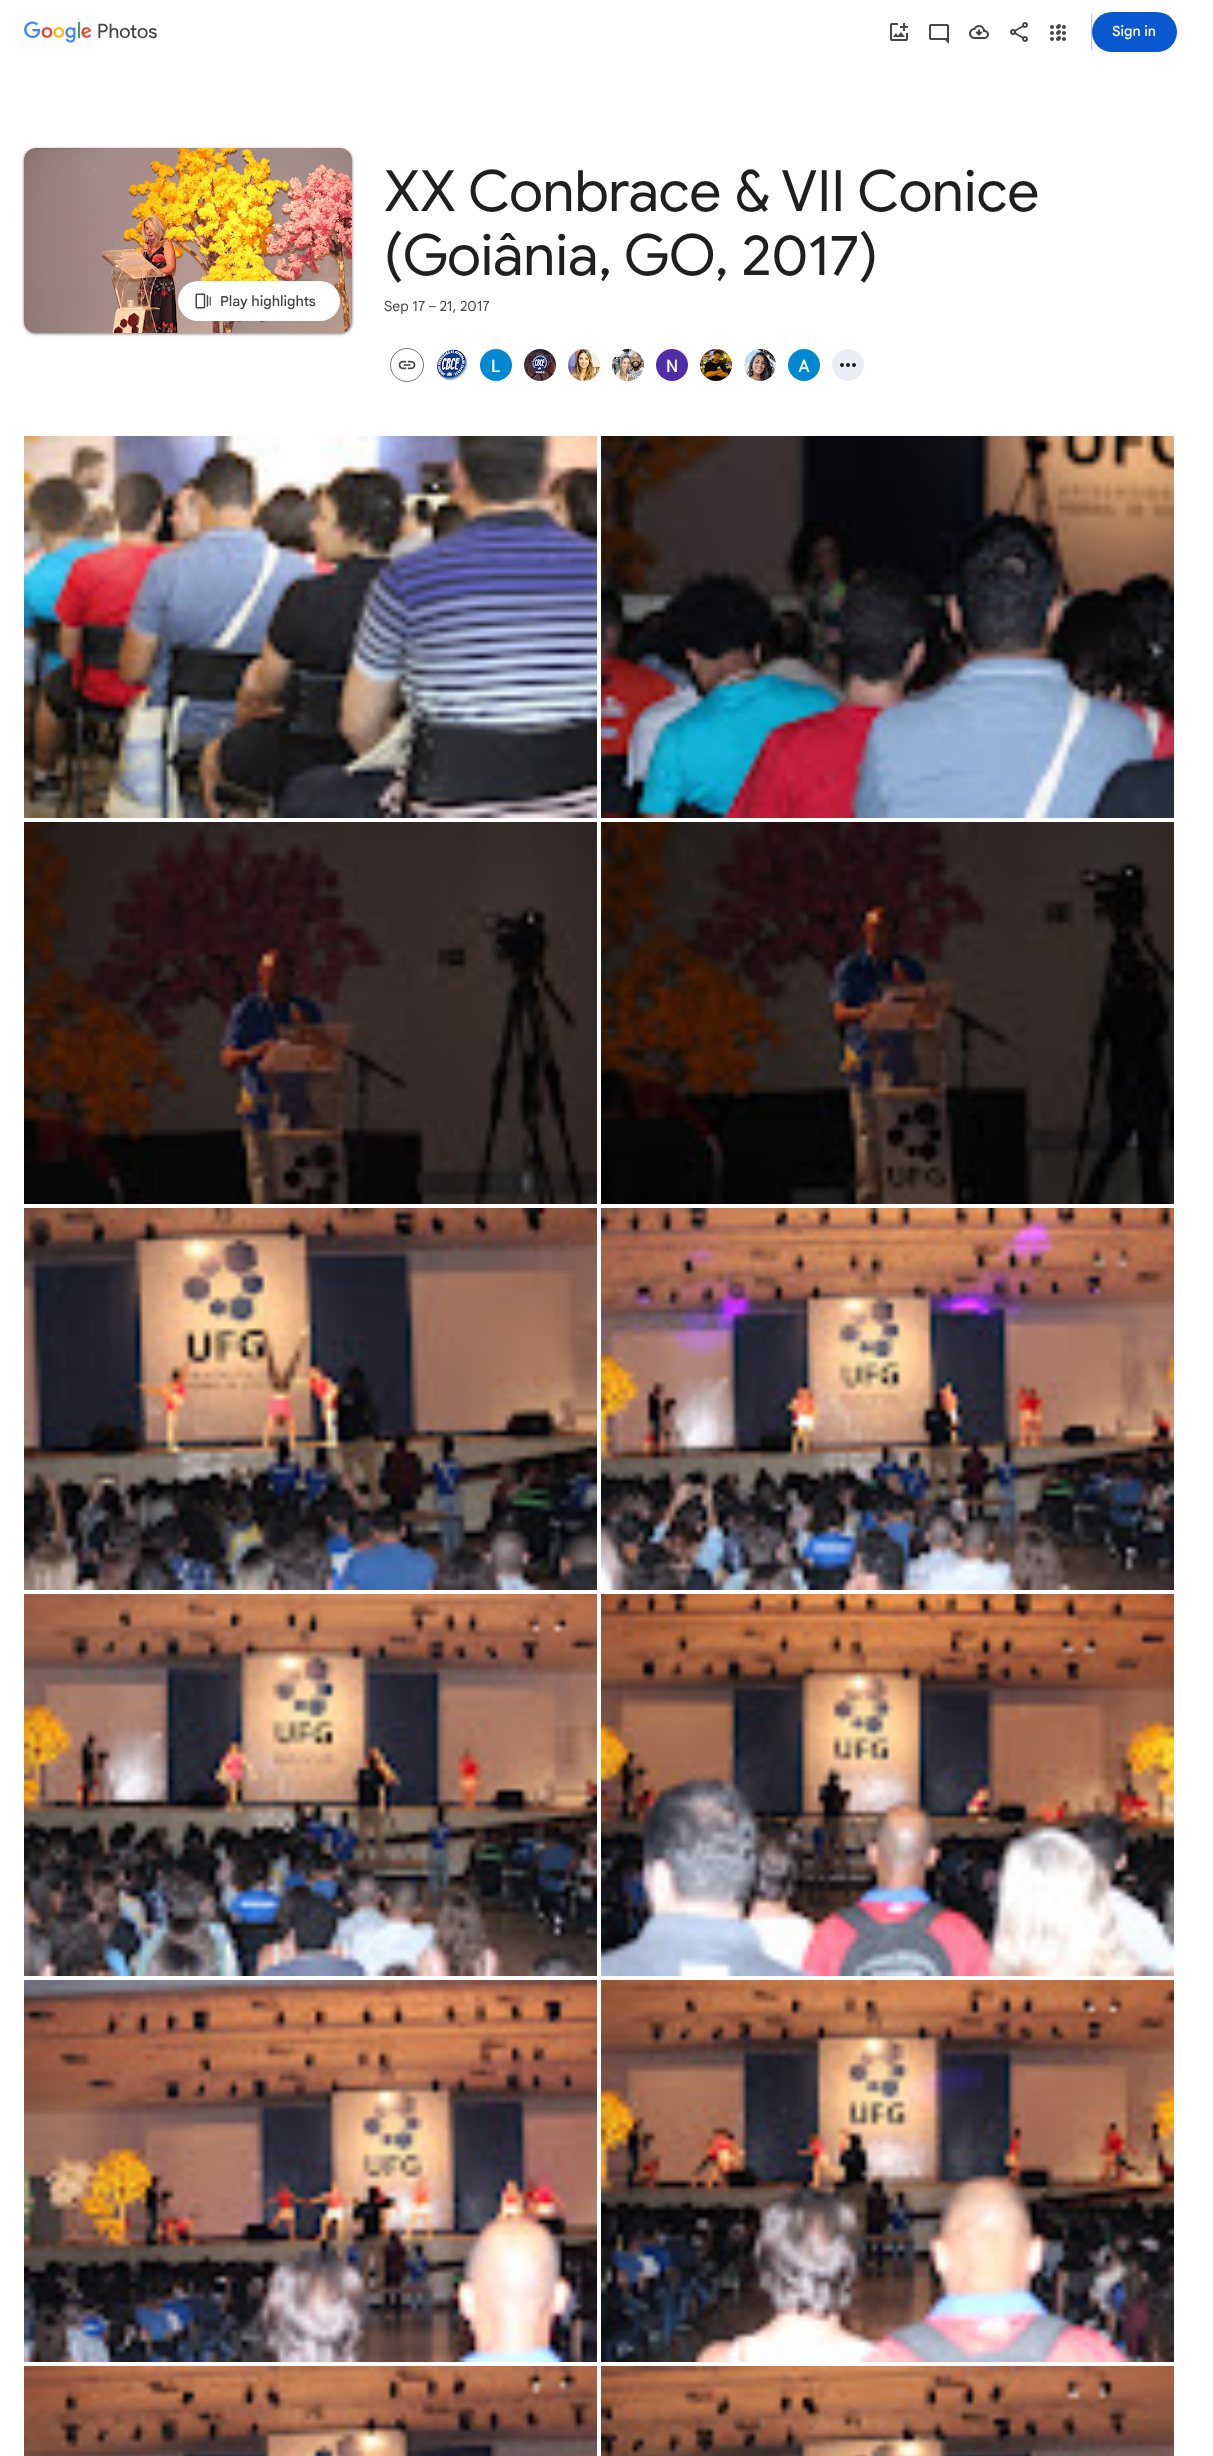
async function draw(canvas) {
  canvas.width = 1213;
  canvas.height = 2456;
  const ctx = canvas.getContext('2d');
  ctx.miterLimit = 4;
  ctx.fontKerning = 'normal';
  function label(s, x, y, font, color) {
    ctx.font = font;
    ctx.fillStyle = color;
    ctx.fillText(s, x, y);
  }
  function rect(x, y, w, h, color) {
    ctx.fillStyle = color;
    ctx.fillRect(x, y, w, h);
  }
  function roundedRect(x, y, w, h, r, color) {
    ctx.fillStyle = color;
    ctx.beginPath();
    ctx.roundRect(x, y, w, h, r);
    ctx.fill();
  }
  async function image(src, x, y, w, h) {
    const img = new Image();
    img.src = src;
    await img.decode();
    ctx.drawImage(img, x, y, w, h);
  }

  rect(0, 0, 1213, 2456, '#fff');
  await image('assets/img1.png', 24, 21, 68, 22);
  label('Photos', 97, 38, '20px Product Sans', '#444746');
  await image('assets/img2.png', 890, 23, 18, 18);
  await image('assets/img3.png', 929, 24, 20, 20);
  await image('assets/img4.png', 969, 25, 20, 14);
  await image('assets/img5.png', 1010, 22, 18, 20);
  await image('assets/img6.png', 1057, 24, 4, 16);
  rect(1091, 14, 1, 36, '#c4c7c5');
  ctx.fillStyle = '#00000026';
  ctx.filter = 'blur(1.5px)';
  ctx.beginPath();
  ctx.roundRect(23, 148, 330, 187, 13);
  ctx.fill();
  ctx.filter = 'none';
  ctx.fillStyle = '#0000004d';
  ctx.filter = 'blur(1px)';
  ctx.beginPath();
  ctx.roundRect(24, 149, 328, 185, 12);
  ctx.fill();
  ctx.filter = 'none';
  await image('assets/img7.png', 24, 148, 328, 185);
  roundedRect(178, 281, 162, 40, 20, '#fff');
  await image('assets/img8.png', 195, 293, 16, 16);
  label('Play highlights', 220, 306, '500 14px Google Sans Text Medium', '#444746');
  label('XX Conbrace & VII Conice', 384, 211, '57px Google Sans', '#1f1f1f');
  label('(Goiânia, GO, 2017)', 384, 275, '57px Google Sans', '#1f1f1f');
  label('Sep 17 – 21, 2017', 384, 311, '14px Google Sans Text', '#444746');
  ctx.beginPath();
  ctx.arc(407, 365, 16.5, 0, 2 * Math.PI);
  ctx.strokeStyle = '#747775';
  ctx.stroke();
  await image('assets/img9.png', 398, 360, 18, 10);
  await image('assets/img10.png', 436, 349, 32, 32);
  await image('assets/img11.png', 480, 349, 32, 32);
  await image('assets/img12.png', 524, 349, 32, 32);
  await image('assets/img13.png', 568, 349, 32, 32);
  await image('assets/img14.png', 612, 349, 32, 32);
  await image('assets/img15.png', 656, 349, 32, 32);
  await image('assets/img16.png', 700, 349, 32, 32);
  await image('assets/img17.png', 744, 349, 32, 32);
  await image('assets/img18.png', 788, 349, 32, 32);
  ctx.fillStyle = '#e9eef6';
  ctx.beginPath();
  ctx.arc(848, 365, 16, 0, 2 * Math.PI);
  ctx.fill();
  await image('assets/img19.png', 840, 363, 16, 4);
  await image('assets/img20.png', 24, 436, 573, 382);
  await image('assets/img21.png', 601, 436, 573, 382);
  await image('assets/img22.png', 24, 822, 573, 382);
  await image('assets/img23.png', 601, 822, 573, 382);
  await image('assets/img24.png', 24, 1208, 573, 382);
  await image('assets/img25.png', 601, 1208, 573, 382);
  await image('assets/img26.png', 24, 1594, 573, 382);
  await image('assets/img27.png', 601, 1594, 573, 382);
  await image('assets/img28.png', 24, 1980, 573, 382);
  await image('assets/img29.png', 601, 1980, 573, 382);
  await image('assets/img30.png', 24, 2366, 573, 90);
  await image('assets/img31.png', 601, 2366, 573, 90);
  await image('assets/img32.png', 1050, 25, 16, 16);
  roundedRect(1092, 12, 85, 40, 20, '#0b57d0');
  label('Sign in', 1112, 36, '500 14px Google Sans Text Medium', '#fff');
}

draw(document.querySelector('canvas'));
